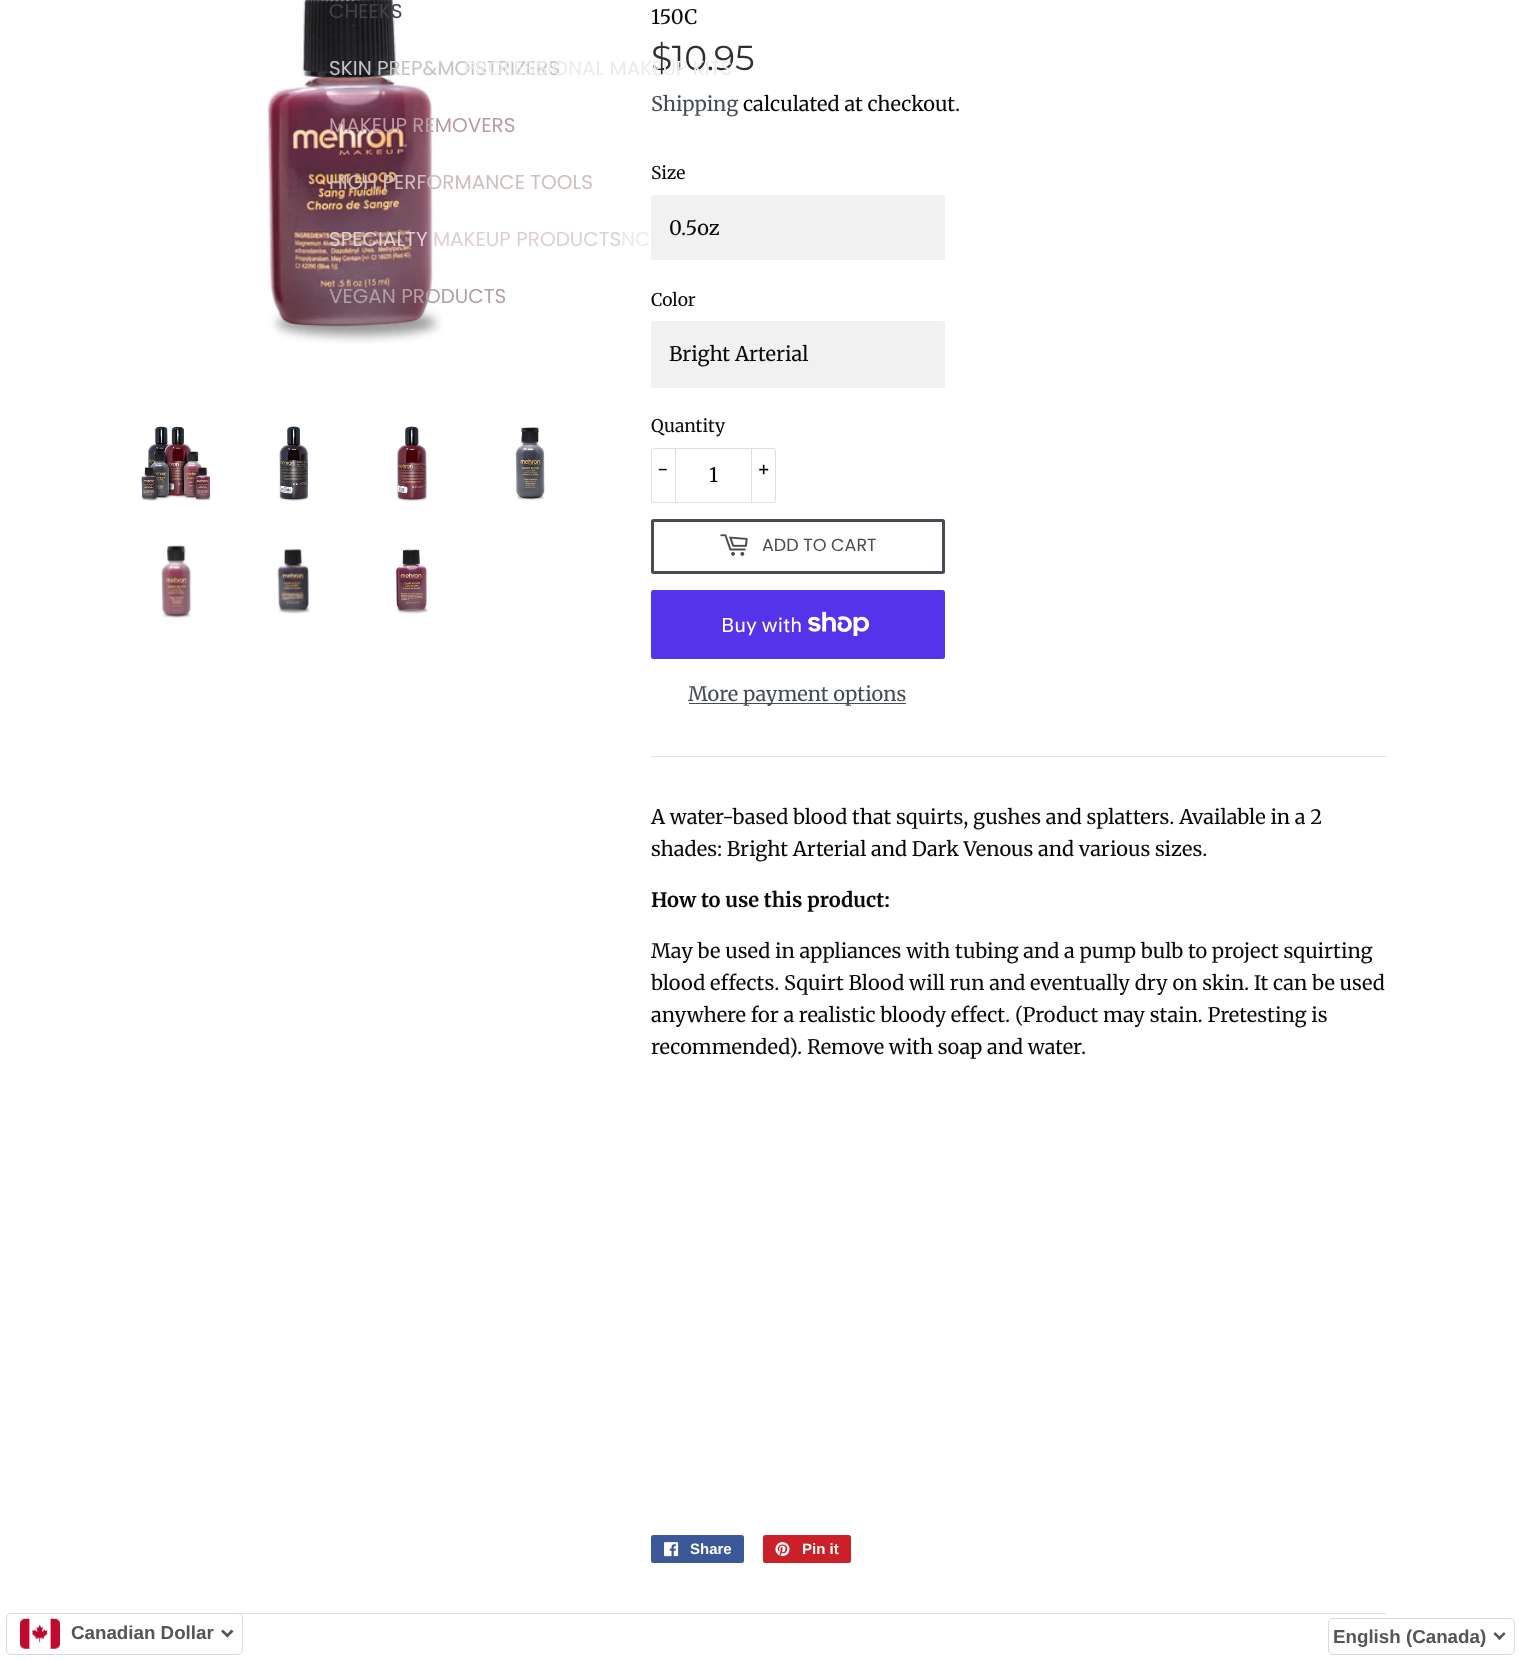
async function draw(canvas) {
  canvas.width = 1521;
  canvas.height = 1661;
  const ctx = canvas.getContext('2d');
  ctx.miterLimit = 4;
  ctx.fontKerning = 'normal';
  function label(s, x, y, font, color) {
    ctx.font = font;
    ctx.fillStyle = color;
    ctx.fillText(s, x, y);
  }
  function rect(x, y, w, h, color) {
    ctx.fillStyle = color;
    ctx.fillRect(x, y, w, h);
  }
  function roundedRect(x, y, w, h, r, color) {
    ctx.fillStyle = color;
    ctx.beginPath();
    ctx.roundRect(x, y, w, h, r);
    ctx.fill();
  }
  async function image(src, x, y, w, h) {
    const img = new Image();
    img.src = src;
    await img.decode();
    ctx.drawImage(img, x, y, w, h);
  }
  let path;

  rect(0, 0, 1521, 1661, '#fff');
  await image('assets/img1.png', 267, 0, 176, 344);
  label('CHEEKS', 329, 18, '20px Poppins', '#434346');
  label('SKIN PREP&MOISTRIZERS', 329, 75, '20px Poppins', '#c4c4c5');
  label('MAKEUP REMOVERS', 329, 132, '20px Poppins', '#b99ca3');
  label('HIGH PERFORMANCE TOOLS', 329, 189, '20px Poppins', '#cfbebd');
  label('SPECIALTY MAKEUP PRODUCTS', 329, 246, '20px Poppins', '#ddd0d0');
  label('VEGAN PRODUCTS', 329, 303, '20px Poppins', '#b19ea6');
  label('$10.95', 651, 70, '34.5px Montserrat', '#2f2f2f');
  label('PROFESSIONAL MAKEUP KITS', 464, 75, '20px Poppins', '#ebebec');
  label('NC', 621, 246, '20px Poppins', '#ebebec');
  await image('assets/img2.png', 140, 426, 71, 76);
  await image('assets/img3.png', 278, 425, 32, 77);
  await image('assets/img4.png', 397, 425, 31, 77);
  await image('assets/img5.png', 515, 427, 30, 74);
  await image('assets/img6.png', 161, 545, 31, 73);
  await image('assets/img7.png', 277, 548, 33, 66);
  await image('assets/img8.png', 395, 549, 33, 65);
  label('150C', 651, 24, '20px Merriweather', '#0a0a0a');
  label('Shipping', 651, 111, '20px Merriweather', '#474c52');
  label('calculated at checkout.', 743, 111, '20px Merriweather', '#0a0a0a');
  label('Size', 651, 179, '17.5px Merriweather', '#0a0a0a');
  roundedRect(651, 195, 294, 65, 2.5, '#f1f1f1');
  label('0.5oz', 669, 235, '20px Merriweather', '#0a0a0a');
  label('Color', 651, 306, '17.5px Merriweather', '#0a0a0a');
  roundedRect(651, 321, 294, 67, 2.5, '#f1f1f1');
  label('Bright Arterial', 669, 361, '20px Merriweather', '#0a0a0a');
  label('Quantity', 651, 432, '17.5px Merriweather', '#0a0a0a');
  ctx.beginPath();
  ctx.roundRect(651.5, 448.5, 124, 54, 2);
  ctx.strokeStyle = '#dedede';
  ctx.stroke();
  rect(675, 448, 1, 55, '#dedede');
  label('-', 657, 476, '20px Merriweather', '#0a0a0a');
  label('1', 709, 482, '20px Merriweather', '#0a0a0a');
  rect(751, 448, 1, 55, '#dedede');
  label('+', 757, 476, '20px Merriweather', '#0a0a0a');
  ctx.beginPath();
  ctx.roundRect(652.5, 520.5, 291, 52, 1);
  ctx.strokeStyle = '#474c52';
  ctx.lineWidth = 3;
  ctx.stroke();
  await image('assets/img9.png', 720, 534, 28, 22);
  label('ADD TO CART', 762, 551, '17.5px Poppins', '#474c52');
  roundedRect(651, 590, 294, 69, 2.5, '#5433eb');
  label('Buy with', 721, 632, '20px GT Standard', '#fff');
  await image('assets/img10.png', 808, 611, 62, 25);
  rect(689, 703, 217, 1, '#474c52');
  label('More payment options', 688, 701, '20px Merriweather', '#474c52');
  rect(651, 756, 735, 1, '#dedede');
  label('A water-based blood that squirts, gushes and splatters. Available in a 2', 651, 824, '20px Merriweather', '#0a0a0a');
  label('shades: Bright Arterial and Dark Venous and various sizes.', 651, 856, '20px Merriweather', '#0a0a0a');
  label('How to use this product:', 651, 907, 'bold 20px Merriweather', '#0a0a0a');
  label('May be used in appliances with tubing and a pump bulb to project squirting', 651, 958, '20px Merriweather', '#0a0a0a');
  label('blood effects. Squirt Blood will run and eventually dry on skin. It can be used', 651, 990, '20px Merriweather', '#0a0a0a');
  label('anywhere for a realistic bloody effect. (Product may stain. Pretesting is', 651, 1022, '20px Merriweather', '#0a0a0a');
  label('recommended). Remove with soap and water.', 651, 1054, '20px Merriweather', '#0a0a0a');
  roundedRect(651, 1535, 93, 28, 2.5, '#3b5998');
  await image('assets/img11.png', 664, 1542, 15, 15);
  label('Share', 690, 1554, 'bold 15px Liberation Sans', '#fff');
  roundedRect(763, 1535, 88, 28, 2.5, '#cb2027');
  await image('assets/img12.png', 775, 1542, 15, 15);
  label('Pin it', 802, 1554, 'bold 15px Liberation Sans', '#fff');
  rect(238, 1613, 1148, 1, '#dedede');
  ctx.fillStyle = '#fff';
  ctx.beginPath();
  ctx.roundRect(6.5, 1613.5, 236, 41, 4.5);
  ctx.fill();
  ctx.strokeStyle = '#dadada';
  ctx.lineWidth = 1;
  ctx.stroke();
  await image('assets/img13.png', 20, 1618, 40, 31);
  label('Canadian Dollar', 71, 1639, 'bold 18.75px Liberation Sans', '#555');
  path = new Path2D('M231.5 1629.5L233.5 1631.5L227.5 1637.5L225.5 1635.5Z');
  ctx.fill(path);
  path = new Path2D('M223 1629.5L229 1635.5L227.5 1637.5L221 1631.5Z');
  ctx.fill(path);
  ctx.beginPath();
  ctx.roundRect(1328.5, 1618.5, 186, 36, 4.5);
  ctx.stroke();
  label('English (Canada)', 1333, 1643, 'bold 18.75px Liberation Sans', '#555');
  path = new Path2D('M1504 1632L1505.5 1634L1499.5 1640L1498 1638Z');
  ctx.fill(path);
  path = new Path2D('M1495 1632L1501.5 1638L1499.5 1640L1493.5 1634Z');
  ctx.fill(path);
}

draw(document.querySelector('canvas'));
